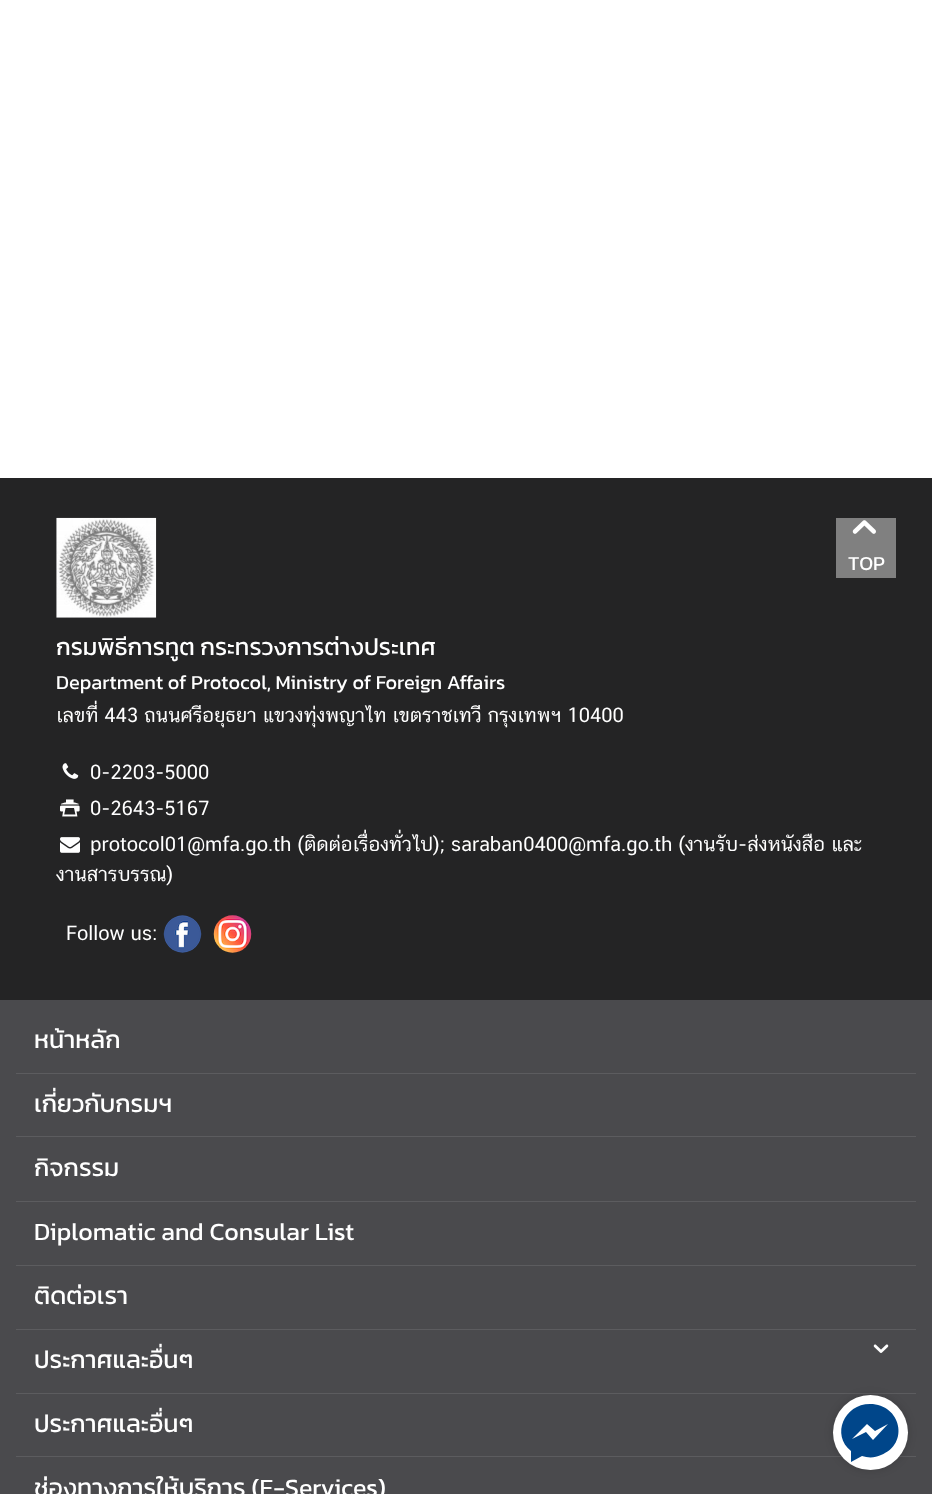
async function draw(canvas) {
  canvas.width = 932;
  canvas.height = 1494;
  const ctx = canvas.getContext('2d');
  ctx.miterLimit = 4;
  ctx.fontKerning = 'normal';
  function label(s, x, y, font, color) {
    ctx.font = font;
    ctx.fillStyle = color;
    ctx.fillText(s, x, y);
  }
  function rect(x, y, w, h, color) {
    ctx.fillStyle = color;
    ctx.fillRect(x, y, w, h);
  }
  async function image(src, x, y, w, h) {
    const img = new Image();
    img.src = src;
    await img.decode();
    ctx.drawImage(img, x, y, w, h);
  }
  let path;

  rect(0, 0, 932, 1494, '#fff');
  rect(0, 478, 932, 522, '#242425');
  await image('assets/img1.png', 56, 517, 101, 101);
  rect(836, 518, 60, 60, '#808080');
  await image('assets/img2.png', 852, 520, 24, 14);
  label('TOP', 848, 570, '20px Kanit', '#fff');
  label('กรมพิธีการทูต กระทรวงการต่างประเทศ', 56, 655, '24px Kanit', '#fff');
  label('Department of Protocol, Ministry of Foreign Affairs', 56, 689, '20px Kanit', '#fff');
  label('เลขที่ 443 ถนนศรีอยุธยา แขวงทุ่งพญาไท เขตราชเทวี กรุงเทพฯ 10400', 56, 722, '20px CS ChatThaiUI', '#fff');
  await image('assets/img3.png', 62, 763, 17, 16);
  label('0-2203-5000', 90, 779, '20px CS ChatThaiUI', '#fff');
  await image('assets/img4.png', 60, 799, 20, 18);
  label('0-2643-5167', 90, 815, '20px CS ChatThaiUI', '#fff');
  await image('assets/img5.png', 60, 837, 20, 16);
  label('protocol01@mfa.go.th (ติดต่อเรื่องทั่วไป); saraban0400@mfa.go.th (งานรับ-ส่งหนังสือ และ', 90, 851, '20px CS ChatThaiUI', '#fff');
  label('งานสารบรรณ)', 56, 881, '20px CS ChatThaiUI', '#fff');
  label('Follow us:', 66, 940, '20px CS ChatThaiUI', '#fff');
  await image('assets/img6.png', 163, 915, 39, 38);
  await image('assets/img7.png', 213, 915, 39, 38);
  rect(0, 1000, 932, 494, '#4a4a4d');
  label('หน้าหลัก', 34, 1048, '25px Kanit', '#fff');
  rect(16, 1073, 900, 1, '#5c5c5f');
  label('เกี่ยวกับกรมฯ', 34, 1112, '25px Kanit', '#fff');
  rect(16, 1136, 900, 1, '#5c5c5f');
  label('กิจกรรม', 34, 1176, '25px Kanit', '#fff');
  rect(16, 1201, 900, 1, '#5c5c5f');
  label('Diplomatic and Consular List', 34, 1240, '25px Kanit', '#fff');
  rect(16, 1265, 900, 1, '#5c5c5f');
  label('ติดต่อเรา', 34, 1304, '25px Kanit', '#fff');
  rect(16, 1329, 900, 1, '#5c5c5f');
  label('ประกาศและอื่นๆ', 34, 1368, '25px Kanit', '#fff');
  await image('assets/img8.png', 873, 1344, 16, 9);
  rect(16, 1393, 900, 1, '#5c5c5f');
  label('ประกาศและอื่นๆ', 34, 1432, '25px Kanit', '#fff');
  rect(16, 1456, 900, 1, '#5c5c5f');
  label('ช่องทางการให้บริการ (E-Services)', 34, 1496, '25px Kanit', '#fff');
  ctx.fillStyle = '#00000029';
  ctx.filter = 'blur(4px)';
  ctx.beginPath();
  ctx.roundRect(833, 1395, 75, 75, 37.5);
  ctx.fill();
  ctx.filter = 'none';
  ctx.fillStyle = '#fff';
  ctx.beginPath();
  ctx.arc(870.5, 1432.5, 37.5, 0, 2 * Math.PI);
  ctx.fill();
  ctx.fillStyle = '#00468a';
  path = new Path2D('M870 1404C844 1404 831 1435 851 1451V1462L862 1456C868 1458 875 1458 881 1455C910 1444 901 1404 870 1404ZM873 1440L866 1432L852 1439L867 1424L875 1431L888 1424Z');
  ctx.fill(path);
}

draw(document.querySelector('canvas'));
